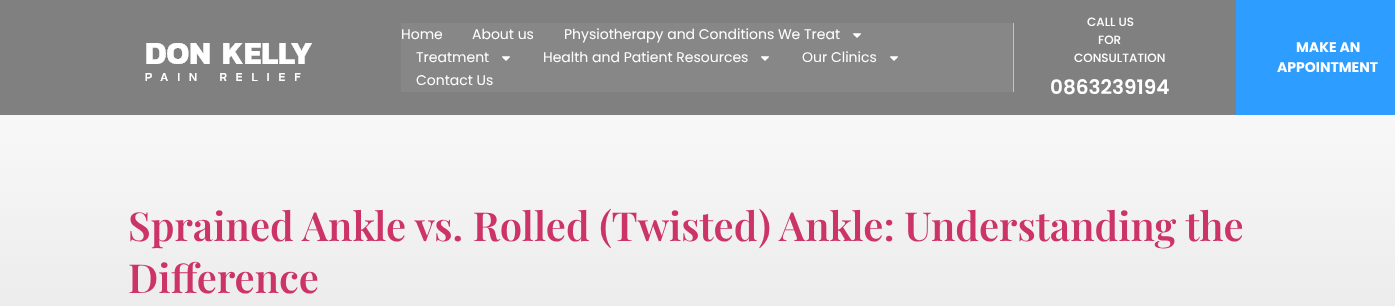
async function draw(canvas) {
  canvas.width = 1395;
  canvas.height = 306;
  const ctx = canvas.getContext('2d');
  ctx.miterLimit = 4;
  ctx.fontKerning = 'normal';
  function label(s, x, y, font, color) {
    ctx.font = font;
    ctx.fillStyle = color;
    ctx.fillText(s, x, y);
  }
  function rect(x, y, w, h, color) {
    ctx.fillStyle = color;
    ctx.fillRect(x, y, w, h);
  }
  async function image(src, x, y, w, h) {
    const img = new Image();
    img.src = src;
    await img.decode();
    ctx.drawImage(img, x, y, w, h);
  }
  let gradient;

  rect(0, 0, 1395, 306, '#fff');
  gradient = ctx.createLinearGradient(697, 0, 698, 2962);
  gradient.addColorStop(0, '#fff');
  gradient.addColorStop(1, '#484848');
  ctx.fillStyle = gradient;
  ctx.fillRect(0, 115, 1395, 191);
  rect(0, 0, 1236, 115, '#808080');
  await image('assets/img1.png', 145, 43, 167, 38);
  rect(401, 23, 612, 69, '#878787');
  rect(1013, 23, 1, 69, '#c3c3c3');
  label('Home', 401, 39, '14px Poppins', '#fff');
  label('About us', 472, 39, '14px Poppins', '#fff');
  label('Physiotherapy and Conditions We Treat', 564, 39, '14px Poppins', '#fff');
  await image('assets/img2.png', 853, 33, 8, 5);
  label('Treatment', 416, 62, '14px Poppins', '#fff');
  await image('assets/img2.png', 502, 56, 8, 5);
  label('Health and Patient Resources', 543, 62, '14px Poppins', '#fff');
  await image('assets/img2.png', 761, 56, 8, 5);
  label('Our Clinics', 802, 62, '14px Poppins', '#fff');
  await image('assets/img2.png', 890, 56, 8, 5);
  label('Contact Us', 416, 85, '14px Poppins', '#fff');
  label('CALL US', 1087, 26, '500 12px Poppins', '#fff');
  label('FOR', 1098, 44, '500 12px Poppins', '#fff');
  label('CONSULTATION', 1074, 62, '500 12px Poppins', '#fff');
  label('0863239194', 1050, 94, '600 20px Poppins', '#fff');
  rect(1236, 0, 159, 115, '#2d9dff');
  label('MAKE AN', 1296, 52, 'bold 14px Poppins', '#fff');
  label('APPOINTMENT', 1277, 72, 'bold 14px Poppins', '#fff');
  label('Sprained Ankle vs. Rolled (Twisted) Ankle: Understanding the', 128, 241, '600 40px Playfair Display', '#c36');
  label('Difference', 128, 293, '600 40px Playfair Display', '#c36');
}

draw(document.querySelector('canvas'));
